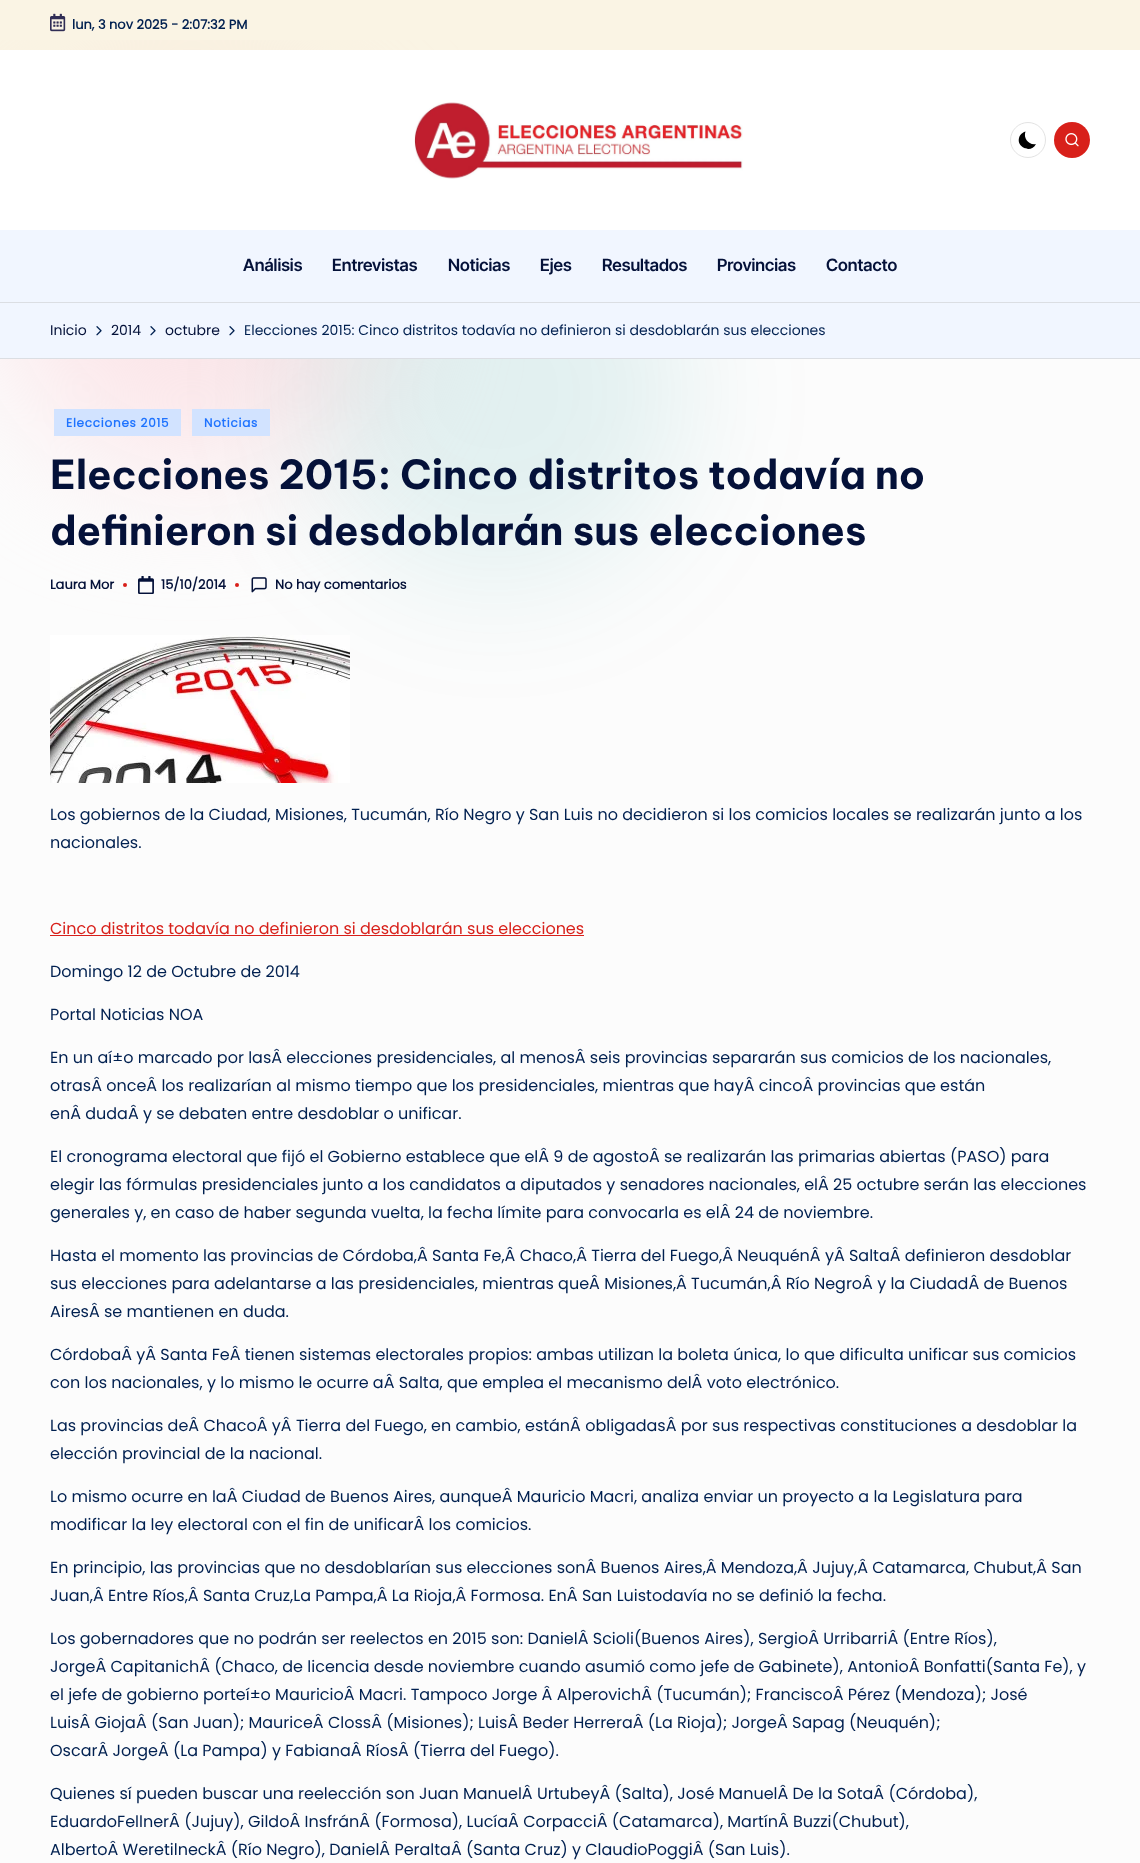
async function draw(canvas) {
  canvas.width = 1140;
  canvas.height = 1863;
  const ctx = canvas.getContext('2d');
  ctx.miterLimit = 4;
  ctx.fontKerning = 'normal';
  function label(s, x, y, font, color) {
    ctx.font = font;
    ctx.fillStyle = color;
    ctx.fillText(s, x, y);
  }
  function rect(x, y, w, h, color) {
    ctx.fillStyle = color;
    ctx.fillRect(x, y, w, h);
  }
  async function image(src, x, y, w, h) {
    const img = new Image();
    img.src = src;
    await img.decode();
    ctx.drawImage(img, x, y, w, h);
  }
  let path;

  rect(0, 0, 1140, 1863, '#fcfcfc');
  ctx.save();
  ctx.beginPath();
  ctx.rect(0, 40, 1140, 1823);
  ctx.clip();
  ctx.fillStyle = '#fbe6e9';
  ctx.filter = 'blur(64px)';
  ctx.beginPath();
  ctx.roundRect(0, 90, 384, 384, 192);
  ctx.fill();
  ctx.filter = 'none';
  ctx.restore();
  ctx.fillStyle = '#04868b1a';
  ctx.filter = 'blur(64px)';
  ctx.beginPath();
  ctx.roundRect(304, 200, 384, 384, 192);
  ctx.fill();
  ctx.filter = 'none';
  rect(0, 0, 1140, 50, '#f7e5b759');
  await image('assets/img1.png', 50, 13, 16, 19);
  label('lun, 3 nov 2025 - 2:07:32 PM', 72, 29, 'bold 13px Poppins', '#002050');
  rect(0, 50, 1140, 180, '#fff');
  await image('assets/img2.png', 414, 102, 329, 77);
  ctx.beginPath();
  ctx.arc(1028, 140, 17.5, 0, 2 * Math.PI);
  ctx.strokeStyle = '#e3e3e3';
  ctx.stroke();
  ctx.fillStyle = '#000';
  path = new Path2D('M1036 144C1029 145.5 1023 138.5 1025.5 131.5C1023.5 132 1021.5 133.5 1020 135.5C1014 146.5 1031 154.5 1036 144Z');
  ctx.fill(path);
  ctx.fillStyle = '#d8201a';
  ctx.beginPath();
  ctx.arc(1072, 140, 18, 0, 2 * Math.PI);
  ctx.fill();
  await image('assets/img3.png', 1065, 133, 14, 14);
  rect(0, 230, 1140, 72, '#f1f6ff');
  label('Análisis', 243, 271, '600 17px Inter Tight', '#041139');
  label('Entrevistas', 332, 271, '600 17px Inter Tight', '#041139');
  label('Noticias', 448, 271, '600 17px Inter Tight', '#041139');
  label('Ejes', 540, 271, '600 17px Inter Tight', '#041139');
  label('Resultados', 602, 271, '600 17px Inter Tight', '#041139');
  label('Provincias', 717, 271, '600 17px Inter Tight', '#041139');
  label('Contacto', 826, 271, '600 17px Inter Tight', '#041139');
  rect(0, 303, 1140, 55, '#f1f6ff');
  rect(0, 302, 1140, 1, '#dbdee3');
  rect(0, 358, 1140, 1, '#dbdee3');
  label('Inicio', 50, 335, '14px Poppins', '#041139');
  await image('assets/img4.png', 96, 326, 6, 10);
  label('2014', 111, 335, '14px Poppins', '#041139');
  await image('assets/img4.png', 150, 326, 6, 10);
  label('octubre', 165, 335, '14px Poppins', '#041139');
  await image('assets/img4.png', 229, 326, 6, 10);
  label('Elecciones 2015: Cinco distritos todavía no definieron si desdoblarán sus elecciones', 244, 335, '14px Poppins', '#002050');
  rect(54, 409, 127, 27, '#d2e3ff');
  ctx.letterSpacing = '0.75px';
  label('Elecciones 2015', 66, 427, 'bold 12px Poppins', '#1e73ff');
  rect(192, 409, 78, 27, '#d2e3ff');
  label('Noticias', 204, 427, 'bold 12px Poppins', '#1e73ff');
  ctx.letterSpacing = '0px';
  label('Elecciones 2015: Cinco distritos todavía no', 50, 489, 'bold 40px Be Vietnam Pro', '#041139');
  label('definieron si desdoblarán sus elecciones', 50, 545, 'bold 40px Be Vietnam Pro', '#041139');
  label('Laura Mor', 50, 589, 'bold 13px Poppins', '#041139');
  ctx.fillStyle = '#d8201a';
  ctx.beginPath();
  ctx.arc(125, 585, 2, 0, 2 * Math.PI);
  ctx.fill();
  await image('assets/img5.png', 138, 576, 16, 18);
  label('15/10/2014', 161, 589, 'bold 13px Poppins', '#041139');
  ctx.fillStyle = '#d8201a';
  ctx.beginPath();
  ctx.arc(237, 585, 2, 0, 2 * Math.PI);
  ctx.fill();
  await image('assets/img6.png', 251, 577, 16, 16);
  label('No hay comentarios', 275, 589, 'bold 13px Poppins', '#041139');
  await image('assets/img7.png', 50, 635, 300, 148);
  label('Los gobiernos de la Ciudad, Misiones, Tucumán, Río Negro y San Luis no decidieron si los comicios locales se realizarán junto a los', 50, 820, '16px Poppins', '#002050');
  label('nacionales.', 50, 848, '16px Poppins', '#002050');
  label('Cinco distritos todavía no definieron si desdoblarán sus elecciones', 50, 934, '16px Poppins', '#d8201a');
  rect(50, 935, 534, 1, '#d8201a');
  label('Domingo 12 de Octubre de 2014', 50, 977, '16px Poppins', '#002050');
  label('Portal Noticias NOA', 50, 1020, '16px Poppins', '#002050');
  label('En un aí±o marcado por lasÂ elecciones presidenciales, al menosÂ seis provincias separarán sus comicios de los nacionales,', 50, 1063, '16px Poppins', '#002050');
  label('otrasÂ onceÂ los realizarían al mismo tiempo que los presidenciales, mientras que hayÂ cincoÂ provincias que están', 50, 1091, '16px Poppins', '#002050');
  label('enÂ dudaÂ y se debaten entre desdoblar o unificar.', 50, 1119, '16px Poppins', '#002050');
  label('El cronograma electoral que fijó el Gobierno establece que elÂ 9 de agostoÂ se realizarán las primarias abiertas (PASO) para', 50, 1162, '16px Poppins', '#002050');
  label('elegir las fórmulas presidenciales junto a los candidatos a diputados y senadores nacionales, elÂ 25 octubre serán las elecciones', 50, 1190, '16px Poppins', '#002050');
  label('generales y, en caso de haber segunda vuelta, la fecha límite para convocarla es elÂ 24 de noviembre.', 50, 1218, '16px Poppins', '#002050');
  label('Hasta el momento las provincias de Córdoba,Â Santa Fe,Â Chaco,Â Tierra del Fuego,Â NeuquénÂ yÂ SaltaÂ definieron desdoblar', 50, 1261, '16px Poppins', '#002050');
  label('sus elecciones para adelantarse a las presidenciales, mientras queÂ Misiones,Â Tucumán,Â Río NegroÂ y la CiudadÂ de Buenos', 50, 1289, '16px Poppins', '#002050');
  label('AiresÂ se mantienen en duda.', 50, 1317, '16px Poppins', '#002050');
  label('CórdobaÂ yÂ Santa FeÂ tienen sistemas electorales propios: ambas utilizan la boleta única, lo que dificulta unificar sus comicios', 50, 1360, '16px Poppins', '#002050');
  label('con los nacionales, y lo mismo le ocurre aÂ Salta, que emplea el mecanismo delÂ voto electrónico.', 50, 1388, '16px Poppins', '#002050');
  label('Las provincias deÂ ChacoÂ yÂ Tierra del Fuego, en cambio, estánÂ obligadasÂ por sus respectivas constituciones a desdoblar la', 50, 1431, '16px Poppins', '#002050');
  label('elección provincial de la nacional.', 50, 1459, '16px Poppins', '#002050');
  label('Lo mismo ocurre en laÂ Ciudad de Buenos Aires, aunqueÂ Mauricio Macri, analiza enviar un proyecto a la Legislatura para', 50, 1502, '16px Poppins', '#002050');
  label('modificar la ley electoral con el fin de unificarÂ los comicios.', 50, 1530, '16px Poppins', '#002050');
  label('En principio, las provincias que no desdoblarían sus elecciones sonÂ Buenos Aires,Â Mendoza,Â Jujuy,Â Catamarca, Chubut,Â San', 50, 1573, '16px Poppins', '#002050');
  label('Juan,Â Entre Ríos,Â Santa Cruz,La Pampa,Â La Rioja,Â Formosa. EnÂ San Luistodavía no se definió la fecha.', 50, 1601, '16px Poppins', '#002050');
  label('Los gobernadores que no podrán ser reelectos en 2015 son: DanielÂ Scioli(Buenos Aires), SergioÂ UrribarriÂ (Entre Ríos),', 50, 1644, '16px Poppins', '#002050');
  label('JorgeÂ CapitanichÂ (Chaco, de licencia desde noviembre cuando asumió como jefe de Gabinete), AntonioÂ Bonfatti(Santa Fe), y', 50, 1672, '16px Poppins', '#002050');
  label('el jefe de gobierno porteí±o MauricioÂ Macri. Tampoco Jorge Â AlperovichÂ (Tucumán); FranciscoÂ Pérez (Mendoza); José', 50, 1700, '16px Poppins', '#002050');
  label('LuisÂ GiojaÂ (San Juan); MauriceÂ ClossÂ (Misiones); LuisÂ Beder HerreraÂ (La Rioja); JorgeÂ Sapag (Neuquén);', 50, 1728, '16px Poppins', '#002050');
  label('OscarÂ JorgeÂ (La Pampa) y FabianaÂ RíosÂ (Tierra del Fuego).', 50, 1756, '16px Poppins', '#002050');
  label('Quienes sí pueden buscar una reelección son Juan ManuelÂ UrtubeyÂ (Salta), José ManuelÂ De la SotaÂ (Córdoba),', 50, 1799, '16px Poppins', '#002050');
  label('EduardoFellnerÂ (Jujuy), GildoÂ InsfránÂ (Formosa), LucíaÂ CorpacciÂ (Catamarca), MartínÂ Buzzi(Chubut),', 50, 1827, '16px Poppins', '#002050');
  label('AlbertoÂ WeretilneckÂ (Río Negro), DanielÂ PeraltaÂ (Santa Cruz) y ClaudioPoggiÂ (San Luis).', 50, 1855, '16px Poppins', '#002050');
}

draw(document.querySelector('canvas'));
